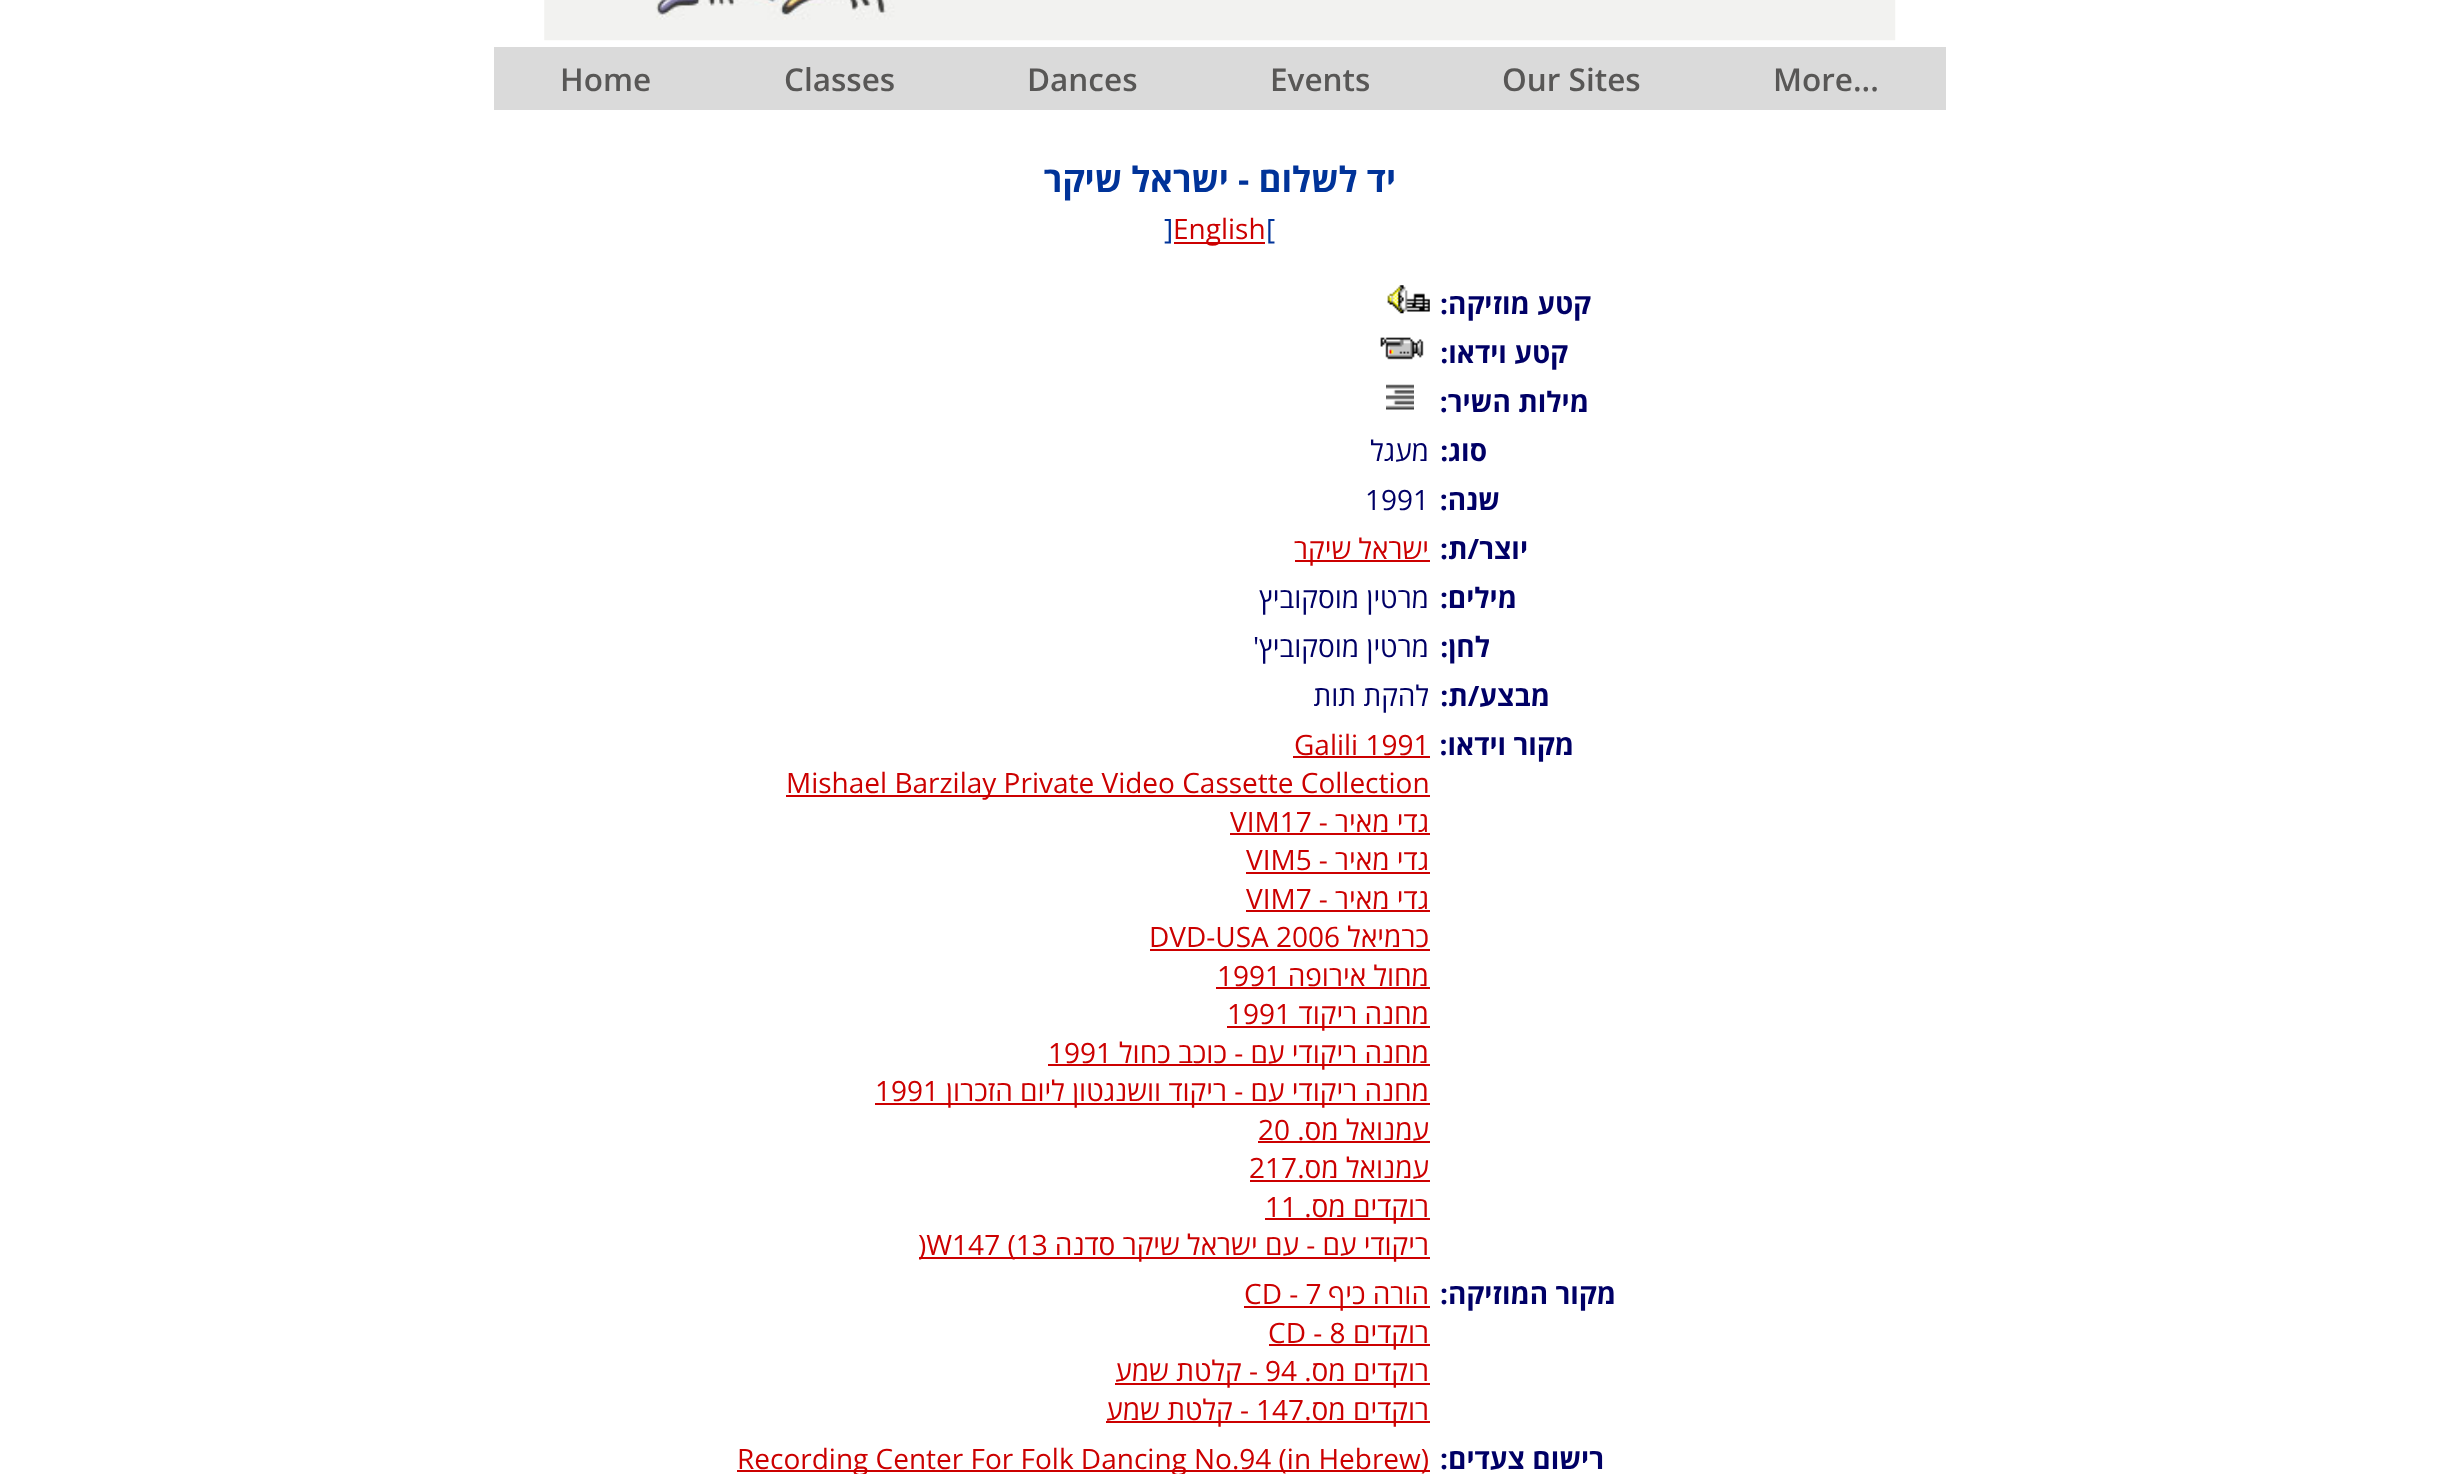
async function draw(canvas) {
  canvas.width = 2438;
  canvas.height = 1474;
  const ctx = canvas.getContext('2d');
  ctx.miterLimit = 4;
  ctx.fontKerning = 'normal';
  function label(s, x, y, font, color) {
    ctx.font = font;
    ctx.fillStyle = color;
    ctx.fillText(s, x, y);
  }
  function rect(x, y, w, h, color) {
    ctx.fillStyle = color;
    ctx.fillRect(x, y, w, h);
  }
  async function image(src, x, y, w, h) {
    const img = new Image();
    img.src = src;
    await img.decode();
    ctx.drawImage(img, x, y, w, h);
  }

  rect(0, 0, 2438, 1474, '#fff');
  await image('assets/img1.png', 544, 0, 1352, 41);
  rect(494, 47, 1452, 63, '#dadada');
  label('More...', 1773, 91, '600 31.5px Open Sans', '#585756');
  label('Our Sites', 1502, 91, '600 31.5px Open Sans', '#585756');
  label('Events', 1270, 91, '600 31.5px Open Sans', '#585756');
  label('Dances', 1027, 91, '600 31.5px Open Sans', '#585756');
  label('Classes', 784, 91, '600 31.5px Open Sans', '#585756');
  label('Home', 560, 91, '600 31.5px Open Sans', '#585756');
  ctx.direction = 'rtl';
  label('יד לשלום - ישראל שיקר', 1396, 192, 'bold 35px Open Sans', '#039');
  ctx.direction = 'ltr';
  label('[', 1266, 239, '28px Open Sans', '#039');
  rect(1174, 242, 91, 2, '#c00');
  label('English', 1173, 239, '28px Open Sans', '#c00');
  label(']', 1164, 239, '28px Open Sans', '#039');
  ctx.direction = 'rtl';
  label('קטע מוזיקה:', 1591, 314, 'bold 28px Open Sans', '#006');
  await image('assets/img2.png', 1387, 285, 43, 29);
  label('קטע וידאו:', 1568, 363, 'bold 28px Open Sans', '#006');
  await image('assets/img3.png', 1380, 337, 44, 23);
  label('מילות השיר:', 1589, 412, 'bold 28px Open Sans', '#006');
  await image('assets/img4.png', 1386, 384, 28, 26);
  label('סוג:', 1487, 461, 'bold 28px Open Sans', '#006');
  label('מעגל', 1429, 461, '28px Open Sans', '#006');
  label('שנה:', 1500, 510, 'bold 28px Open Sans', '#006');
  ctx.direction = 'ltr';
  label('1991', 1365, 510, '28px Open Sans', '#006');
  ctx.direction = 'rtl';
  label('יוצר/ת:', 1528, 559, 'bold 28px Open Sans', '#006');
  rect(1295, 560, 135, 2, '#c00');
  label('ישראל שיקר', 1429, 559, '28px Open Sans', '#c00');
  label('מילים:', 1517, 608, 'bold 28px Open Sans', '#006');
  label('מרטין מוסקוביץ', 1429, 608, '28px Open Sans', '#006');
  label('לחן:', 1490, 657, 'bold 28px Open Sans', '#006');
  label('מרטין מוסקוביץ\'', 1429, 657, '28px Open Sans', '#006');
  label('מבצע/ת:', 1550, 706, 'bold 28px Open Sans', '#006');
  label('להקת תות', 1429, 706, '28px Open Sans', '#006');
  label('מקור וידאו:', 1574, 755, 'bold 28px Open Sans', '#006');
  ctx.direction = 'ltr';
  label('Galili 1991', 1294, 755, '28px Open Sans', '#c00');
  rect(1293, 756, 137, 2, '#c00');
  rect(786, 795, 644, 2, '#c00');
  label('Mishael Barzilay Private Video Cassette Collection', 786, 793, '28px Open Sans', '#c00');
  ctx.direction = 'rtl';
  label('גדי מאיר -', 1429, 832, '28px Open Sans', '#c00');
  rect(1230, 833, 200, 2, '#c00');
  ctx.direction = 'ltr';
  label('VIM17', 1230, 832, '28px Open Sans', '#c00');
  ctx.direction = 'rtl';
  label('גדי מאיר -', 1429, 870, '28px Open Sans', '#c00');
  rect(1246, 872, 184, 2, '#c00');
  ctx.direction = 'ltr';
  label('VIM5', 1246, 870, '28px Open Sans', '#c00');
  ctx.direction = 'rtl';
  label('גדי מאיר -', 1429, 909, '28px Open Sans', '#c00');
  rect(1246, 910, 184, 2, '#c00');
  ctx.direction = 'ltr';
  label('VIM7', 1246, 909, '28px Open Sans', '#c00');
  ctx.direction = 'rtl';
  label('כרמיאל', 1429, 947, '28px Open Sans', '#c00');
  ctx.direction = 'ltr';
  label('DVD-USA 2006', 1149, 947, '28px Open Sans', '#c00');
  rect(1150, 949, 280, 2, '#c00');
  ctx.direction = 'rtl';
  label('מחול אירופה', 1429, 986, '28px Open Sans', '#c00');
  ctx.direction = 'ltr';
  label('1991', 1217, 986, '28px Open Sans', '#c00');
  rect(1216, 987, 214, 2, '#c00');
  rect(1227, 1026, 203, 2, '#c00');
  ctx.direction = 'rtl';
  label('מחנה ריקוד', 1429, 1024, '28px Open Sans', '#c00');
  ctx.direction = 'ltr';
  label('1991', 1227, 1024, '28px Open Sans', '#c00');
  rect(1048, 1064, 382, 2, '#c00');
  ctx.direction = 'rtl';
  label('מחנה ריקודי עם - כוכב כחול', 1429, 1063, '28px Open Sans', '#c00');
  ctx.direction = 'ltr';
  label('1991', 1048, 1063, '28px Open Sans', '#c00');
  rect(875, 1103, 555, 2, '#c00');
  ctx.direction = 'rtl';
  label('מחנה ריקודי עם - ריקוד וושנגטון ליום הזכרון', 1429, 1101, '28px Open Sans', '#c00');
  ctx.direction = 'ltr';
  label('1991', 875, 1101, '28px Open Sans', '#c00');
  ctx.direction = 'rtl';
  label('עמנואל מס.', 1429, 1140, '28px Open Sans', '#c00');
  ctx.direction = 'ltr';
  label('20', 1258, 1140, '28px Open Sans', '#c00');
  rect(1258, 1141, 172, 2, '#c00');
  ctx.direction = 'rtl';
  label('עמנואל מס.', 1429, 1178, '28px Open Sans', '#c00');
  ctx.direction = 'ltr';
  label('217', 1249, 1178, '28px Open Sans', '#c00');
  rect(1250, 1180, 180, 2, '#c00');
  rect(1265, 1218, 165, 2, '#c00');
  ctx.direction = 'rtl';
  label('רוקדים מס.', 1429, 1217, '28px Open Sans', '#c00');
  ctx.direction = 'ltr';
  label('11', 1265, 1217, '28px Open Sans', '#c00');
  rect(919, 1257, 511, 2, '#c00');
  ctx.direction = 'rtl';
  label('ריקודי עם - עם ישראל שיקר סדנה', 1429, 1255, '28px Open Sans', '#c00');
  ctx.direction = 'ltr';
  label(')W147 (13', 918, 1255, '28px Open Sans', '#c00');
  ctx.direction = 'rtl';
  label('מקור המוזיקה:', 1616, 1304, 'bold 28px Open Sans', '#006');
  rect(1244, 1306, 186, 2, '#c00');
  label('הורה כיף', 1429, 1304, '28px Open Sans', '#c00');
  ctx.direction = 'ltr';
  label('CD - 7', 1244, 1304, '28px Open Sans', '#c00');
  rect(1269, 1344, 161, 2, '#c00');
  ctx.direction = 'rtl';
  label('רוקדים', 1429, 1343, '28px Open Sans', '#c00');
  ctx.direction = 'ltr';
  label('CD - 8', 1268, 1343, '28px Open Sans', '#c00');
  rect(1115, 1383, 315, 2, '#c00');
  ctx.direction = 'rtl';
  label('רוקדים מס.', 1429, 1381, '28px Open Sans', '#c00');
  ctx.direction = 'ltr';
  label('94', 1265, 1381, '28px Open Sans', '#c00');
  ctx.direction = 'rtl';
  label('- קלטת שמע', 1258, 1381, '28px Open Sans', '#c00');
  rect(1106, 1421, 324, 2, '#c00');
  label('רוקדים מס.', 1429, 1420, '28px Open Sans', '#c00');
  ctx.direction = 'ltr';
  label('147', 1256, 1420, '28px Open Sans', '#c00');
  ctx.direction = 'rtl';
  label('- קלטת שמע', 1249, 1420, '28px Open Sans', '#c00');
  label('רישום צעדים:', 1604, 1469, 'bold 28px Open Sans', '#006');
  rect(737, 1470, 693, 2, '#c00');
  ctx.direction = 'ltr';
  label('Recording Center For Folk Dancing No.94 (in Hebrew)', 737, 1469, '28px Open Sans', '#c00');
}

draw(document.querySelector('canvas'));
